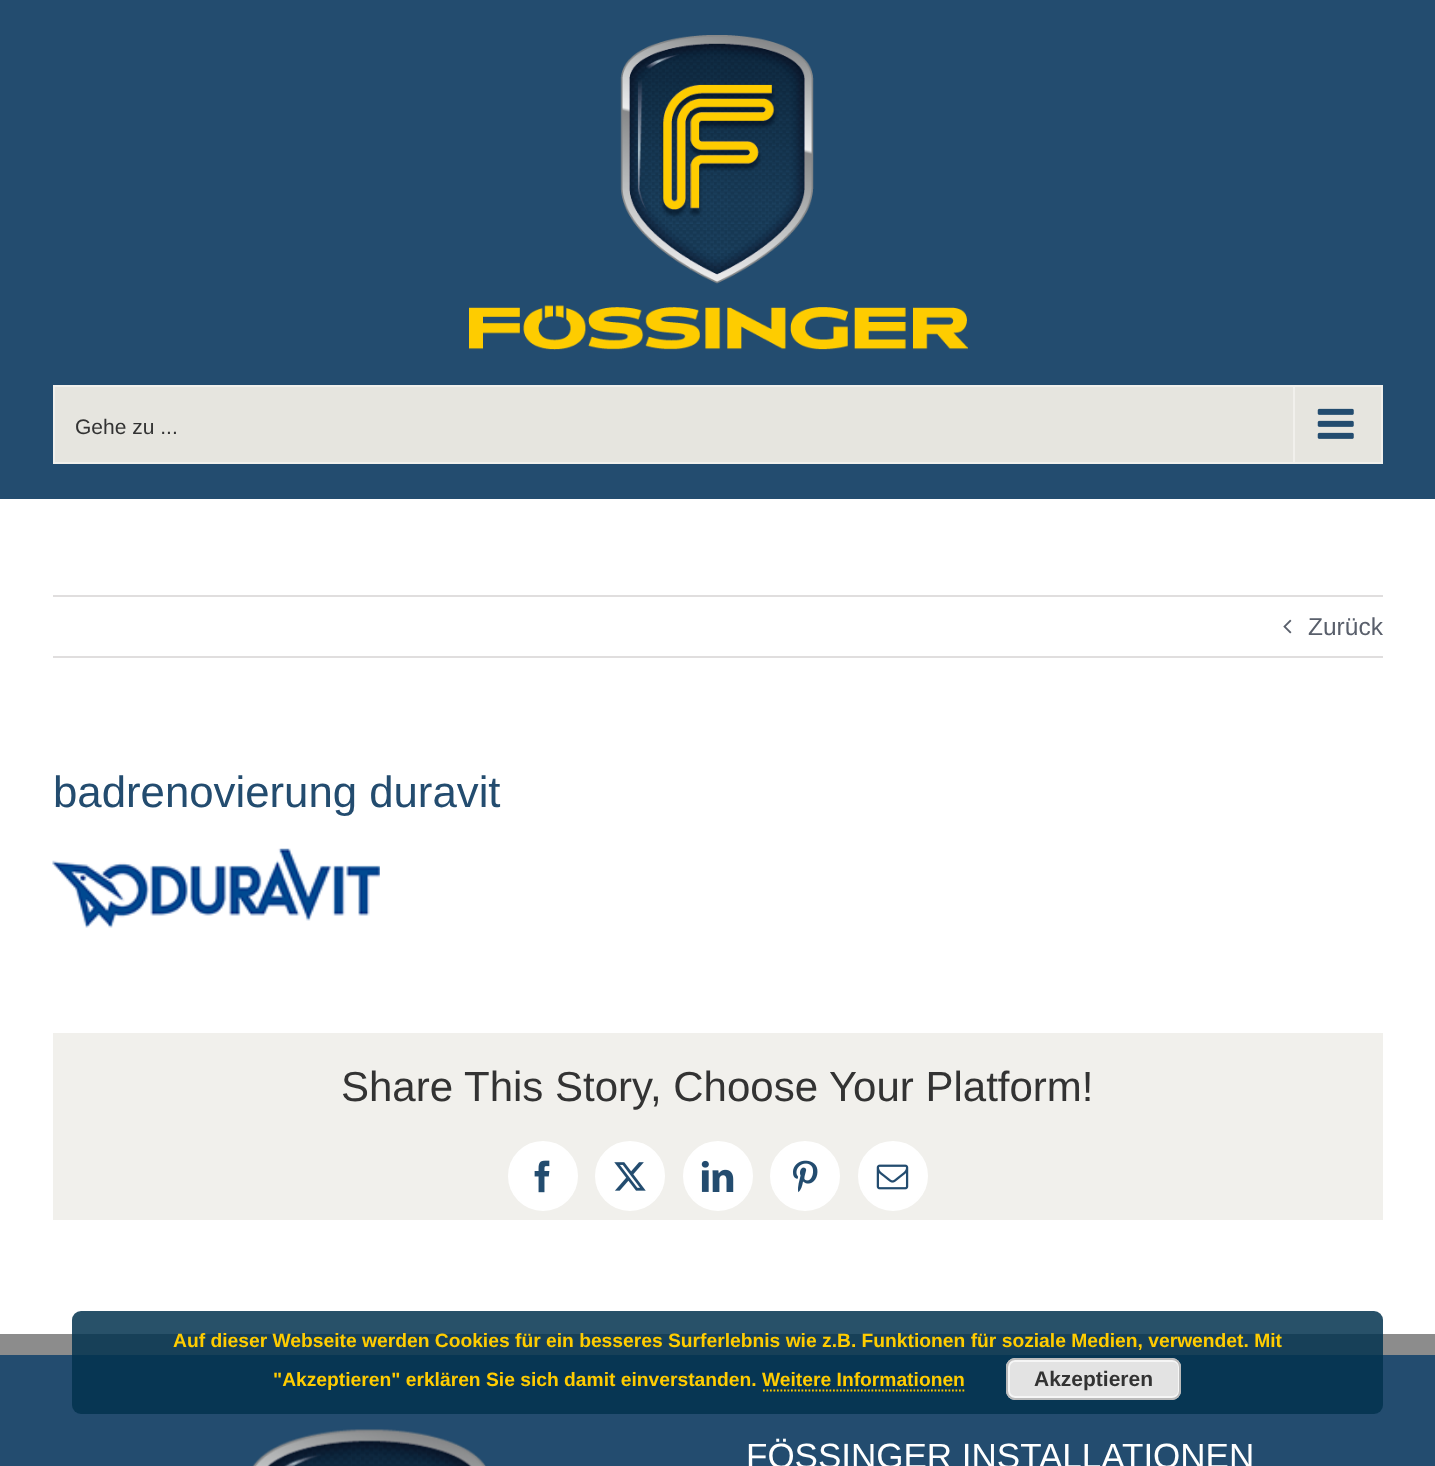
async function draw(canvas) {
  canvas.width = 1435;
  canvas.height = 1466;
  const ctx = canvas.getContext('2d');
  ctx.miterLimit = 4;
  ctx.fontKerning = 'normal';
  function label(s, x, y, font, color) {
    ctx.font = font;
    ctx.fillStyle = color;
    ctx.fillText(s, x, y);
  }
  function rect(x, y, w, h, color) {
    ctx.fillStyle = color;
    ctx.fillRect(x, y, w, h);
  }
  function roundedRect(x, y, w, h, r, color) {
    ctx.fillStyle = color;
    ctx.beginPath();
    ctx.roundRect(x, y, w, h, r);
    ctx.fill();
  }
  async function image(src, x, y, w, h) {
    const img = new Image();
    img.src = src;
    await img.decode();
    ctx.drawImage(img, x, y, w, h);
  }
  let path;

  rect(0, 0, 1435, 1466, '#fff');
  rect(0, 0, 1435, 499, '#234c6f');
  await image('assets/img1.png', 469, 35, 499, 315);
  ctx.fillStyle = '#e6e5df';
  ctx.beginPath();
  ctx.rect(54, 386, 1328, 77);
  ctx.fill();
  ctx.strokeStyle = '#f1f0ec';
  ctx.lineWidth = 2;
  ctx.stroke();
  label('Gehe zu ...', 75, 434, '21px Liberation Sans', '#333');
  rect(1293, 387, 2, 75, '#f1f0ec');
  await image('assets/img2.png', 1317, 408, 37, 31);
  rect(53, 595, 1330, 2, '#e0dede');
  rect(53, 656, 1330, 2, '#e0dede');
  await image('assets/img3.png', 1283, 619, 9, 15);
  label('Zurück', 1308, 635, '24.5px Liberation Sans', '#595f6b');
  label('badrenovierung duravit', 53, 807, '43.75px Liberation Sans', '#234c6f');
  await image('assets/img4.png', 52, 848, 328, 80);
  rect(53, 1033, 1330, 187, '#f1f0ec');
  label('Share This Story, Choose Your Platform!', 341, 1101, '42px Liberation Sans', '#333');
  ctx.fillStyle = '#fff';
  ctx.beginPath();
  ctx.arc(543, 1176, 34, 0, 2 * Math.PI);
  ctx.fill();
  ctx.strokeStyle = '#fff';
  ctx.stroke();
  await image('assets/img5.png', 534, 1160, 16, 33);
  ctx.beginPath();
  ctx.arc(630, 1176, 34, 0, 2 * Math.PI);
  ctx.fill();
  ctx.stroke();
  await image('assets/img6.png', 614, 1162, 32, 29);
  ctx.beginPath();
  ctx.arc(718, 1176, 34, 0, 2 * Math.PI);
  ctx.fill();
  ctx.stroke();
  await image('assets/img7.png', 701, 1160, 33, 32);
  ctx.beginPath();
  ctx.arc(805, 1176, 34, 0, 2 * Math.PI);
  ctx.fill();
  ctx.stroke();
  await image('assets/img8.png', 793, 1160, 25, 33);
  ctx.beginPath();
  ctx.arc(893, 1176, 34, 0, 2 * Math.PI);
  ctx.fill();
  ctx.stroke();
  await image('assets/img9.png', 876, 1164, 33, 26);
  rect(0, 1355, 1435, 111, '#234c6f');
  rect(0, 1334, 1435, 21, '#8c8c8c');
  await image('assets/img10.png', 252, 1429, 234, 37);
  label('FÖSSINGER INSTALLATIONEN', 746, 1468, '35px Liberation Sans', '#fff');
  roundedRect(72, 1311, 1311, 103, 9, '#02324fd9');
  label('Auf dieser Webseite werden Cookies für ein besseres Surferlebnis wie z.B. Funktionen für soziale Medien, verwendet. Mit', 173, 1347, 'bold 19.25px Liberation Sans', '#fc0');
  label('"Akzeptieren" erklären Sie sich damit einverstanden. Weitere Informationen', 273, 1386, 'bold 19.25px Liberation Sans', '#fc0');
  roundedRect(1006, 1358, 175, 42, 9, '#e3e3e3');
  ctx.beginPath();
  ctx.roundRect(1009, 1361, 170, 36, 6);
  ctx.strokeStyle = '#f6f6f6';
  ctx.stroke();
  ctx.beginPath();
  ctx.roundRect(1007, 1359, 173, 40, 8);
  ctx.strokeStyle = '#bbb';
  ctx.stroke();
  label('Akzeptieren', 1034, 1386, 'bold 21px Liberation Sans', '#333');
  path = new Path2D('M763 1390.5H966');
  ctx.strokeStyle = '#fc0';
  ctx.lineWidth = 1.8;
  ctx.setLineDash([1.75, 1.75]);
  ctx.stroke(path);
}

draw(document.querySelector('canvas'));
